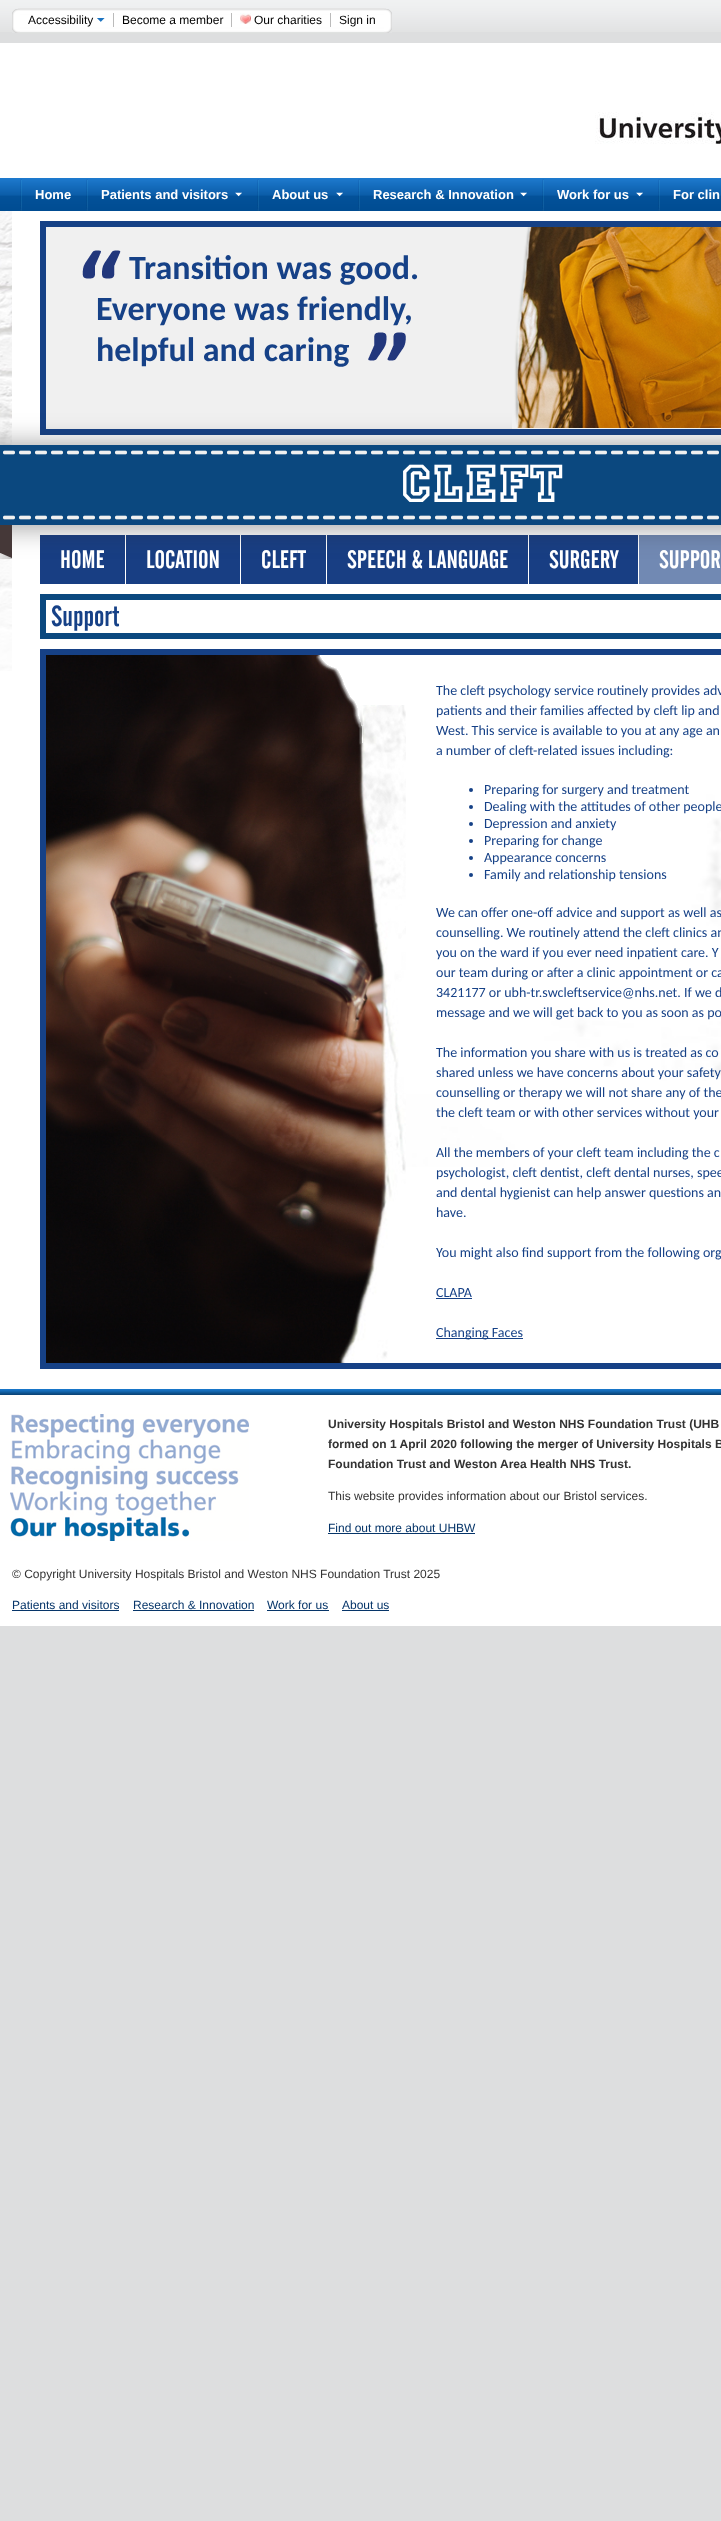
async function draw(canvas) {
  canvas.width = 721;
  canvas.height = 2521;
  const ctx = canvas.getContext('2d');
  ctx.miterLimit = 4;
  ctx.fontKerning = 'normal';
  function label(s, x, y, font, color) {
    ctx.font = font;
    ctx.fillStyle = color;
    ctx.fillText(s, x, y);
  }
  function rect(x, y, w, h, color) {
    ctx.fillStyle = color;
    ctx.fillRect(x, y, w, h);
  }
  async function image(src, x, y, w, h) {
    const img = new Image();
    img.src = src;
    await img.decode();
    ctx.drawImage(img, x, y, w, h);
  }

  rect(0, 0, 721, 2521, '#dddedf');
  await image('assets/img1.png', 0, 0, 721, 32);
  await image('assets/img2.png', 12, 8, 8, 25);
  await image('assets/img3.png', 20, 8, 364, 26);
  rect(113, 13, 1, 14, '#bbb');
  label('Accessibility', 28, 24, '12px Liberation Sans', '#000');
  await image('assets/img4.png', 97, 18, 8, 4);
  rect(231, 13, 1, 14, '#bbb');
  label('Become a member', 122, 24, '12px Liberation Sans', '#000');
  rect(330, 13, 1, 14, '#bbb');
  await image('assets/img5.png', 240, 13, 11, 11);
  label('Our charities', 254, 24, '12px Liberation Sans', '#000');
  label('Sign in', 339, 24, '12px Liberation Sans', '#000');
  await image('assets/img6.png', 384, 8, 8, 25);
  rect(0, 43, 721, 135, '#fff');
  await image('assets/img7.png', 595, 112, 126, 32);
  await image('assets/img8.png', 0, 178, 721, 33);
  await image('assets/img9.png', 20, 179, 2, 32);
  label('Home', 35, 199, 'bold 13px Liberation Sans', '#fff');
  await image('assets/img9.png', 86, 179, 2, 32);
  label('Patients and visitors', 101, 199, 'bold 13px Liberation Sans', '#fff');
  await image('assets/img10.png', 235, 192, 7, 5);
  await image('assets/img9.png', 257, 179, 2, 32);
  label('About us', 272, 199, 'bold 13px Liberation Sans', '#fff');
  await image('assets/img10.png', 336, 192, 7, 5);
  await image('assets/img9.png', 358, 179, 2, 32);
  label('Research & Innovation', 373, 199, 'bold 13px Liberation Sans', '#fff');
  await image('assets/img10.png', 520, 192, 7, 5);
  await image('assets/img9.png', 542, 179, 2, 32);
  label('Work for us', 557, 199, 'bold 13px Liberation Sans', '#fff');
  await image('assets/img10.png', 636, 192, 7, 5);
  await image('assets/img9.png', 658, 179, 2, 32);
  label('For clin', 673, 199, 'bold 13px Liberation Sans', '#fff');
  rect(0, 671, 12, 718, '#fff');
  await image('assets/img11.png', 0, 211, 12, 460);
  rect(12, 211, 709, 1178, '#fff');
  ctx.strokeStyle = '#164186';
  ctx.lineWidth = 6;
  ctx.strokeRect(43, 224, 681, 208);
  rect(46, 227, 466, 202, '#f0f0f0');
  await image('assets/img12.png', 82, 250, 39, 29);
  label('Transition was good.', 129, 279, 'bold 34px Carlito', '#164187');
  label('Everyone was friendly,', 96, 320, 'bold 34px Carlito', '#164187');
  label('helpful and caring', 96, 361, 'bold 34px Carlito', '#164187');
  await image('assets/img13.png', 368, 332, 38, 29);
  rect(40, 535, 598, 49, '#183e83');
  rect(125, 535, 1, 49, '#fff');
  rect(240, 535, 1, 49, '#fff');
  rect(326, 535, 1, 49, '#fff');
  rect(528, 535, 1, 49, '#fff');
  rect(639, 535, 82, 49, '#7189b3');
  ctx.fillStyle = '#2e2d2d80';
  ctx.filter = 'blur(14.5px)';
  ctx.beginPath();
  ctx.rect(-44, 446, 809, 80);
  ctx.fill();
  ctx.filter = 'none';
  await image('assets/img15.png', 516, 227, 205, 201);
  await image('assets/img14.png', 512, 227, 20, 202);
  rect(0, 445, 721, 80, '#0b487f');
  await image('assets/img16.png', 3, 450, 716, 5);
  label('Cleft', 401, 502, '56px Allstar', '#fff');
  await image('assets/img16.png', 3, 515, 716, 5);
  await image('assets/img17.png', 0, 525, 12, 34);
  label('HOME', 60, 568, '25px "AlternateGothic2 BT"', '#fff');
  label('LOCATION', 146, 568, '25px "AlternateGothic2 BT"', '#fff');
  label('CLEFT', 261, 568, '25px "AlternateGothic2 BT"', '#fff');
  label('SPEECH & LANGUAGE', 347, 568, '25px "AlternateGothic2 BT"', '#fff');
  label('SURGERY', 549, 568, '25px "AlternateGothic2 BT"', '#fff');
  label('SUPPOR', 659, 568, '25px "AlternateGothic2 BT"', '#fff');
  ctx.strokeStyle = '#0b487f';
  ctx.strokeRect(43, 597, 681, 39);
  label('Support', 51, 626, '29px "AlternateGothic2 BT"', '#164187');
  await image('assets/img18.png', 406, 655, 315, 512);
  ctx.strokeStyle = '#164186';
  ctx.strokeRect(43, 652, 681, 714);
  await image('assets/img19.png', 46, 655, 342, 708);
  await image('assets/img20.png', 316, 655, 90, 708);
  label('The cleft psychology service routinely provides adv', 436, 695, '14px Carlito', '#164187');
  label('patients and their families affected by cleft lip and', 436, 715, '14px Carlito', '#164187');
  label('West. This service is available to you at any age an', 436, 735, '14px Carlito', '#164187');
  label('a number of cleft-related issues including:', 436, 755, '14px Carlito', '#164187');
  ctx.beginPath();
  ctx.arc(471, 790, 2, 0, 2 * Math.PI);
  ctx.fill();
  label('Preparing for surgery and treatment', 484, 794, '14px Carlito', '#164187');
  ctx.beginPath();
  ctx.arc(471, 807, 2, 0, 2 * Math.PI);
  ctx.fill();
  label('Dealing with the attitudes of other people', 484, 811, '14px Carlito', '#164187');
  ctx.beginPath();
  ctx.arc(471, 824, 2, 0, 2 * Math.PI);
  ctx.fill();
  label('Depression and anxiety', 484, 828, '14px Carlito', '#164187');
  ctx.beginPath();
  ctx.arc(471, 841, 2, 0, 2 * Math.PI);
  ctx.fill();
  label('Preparing for change', 484, 845, '14px Carlito', '#164187');
  ctx.beginPath();
  ctx.arc(471, 858, 2, 0, 2 * Math.PI);
  ctx.fill();
  label('Appearance concerns', 484, 862, '14px Carlito', '#164187');
  ctx.beginPath();
  ctx.arc(471, 875, 2, 0, 2 * Math.PI);
  ctx.fill();
  label('Family and relationship tensions', 484, 879, '14px Carlito', '#164187');
  label('We can offer one-off advice and support as well as', 436, 917, '14px Carlito', '#164187');
  label('counselling. We routinely attend the cleft clinics an', 436, 937, '14px Carlito', '#164187');
  label('you on the ward if you ever need inpatient care. Y', 436, 957, '14px Carlito', '#164187');
  label('our team during or after a clinic appointment or ca', 436, 977, '14px Carlito', '#164187');
  label('3421177 or ubh-tr.swcleftservice@nhs.net. If we d', 436, 997, '14px Carlito', '#164187');
  label('message and we will get back to you as soon as po', 436, 1017, '14px Carlito', '#164187');
  label('The information you share with us is treated as co', 436, 1057, '14px Carlito', '#164187');
  label('shared unless we have concerns about your safety', 436, 1077, '14px Carlito', '#164187');
  label('counselling or therapy we will not share any of the', 436, 1097, '14px Carlito', '#164187');
  label('the cleft team or with other services without your', 436, 1117, '14px Carlito', '#164187');
  label('All the members of your cleft team including the c', 436, 1157, '14px Carlito', '#164187');
  label('psychologist, cleft dentist, cleft dental nurses, spee', 436, 1177, '14px Carlito', '#164187');
  label('and dental hygienist can help answer questions an', 436, 1197, '14px Carlito', '#164187');
  label('have.', 436, 1217, '14px Carlito', '#164187');
  label('You might also find support from the following org', 436, 1257, '14px Carlito', '#164187');
  label('CLAPA', 436, 1297, '14px Carlito', '#164187');
  rect(436, 1298, 36, 1, '#164187');
  rect(436, 1338, 87, 1, '#164187');
  label('Changing Faces', 436, 1337, '14px Carlito', '#164187');
  rect(0, 1395, 721, 231, '#fff');
  await image('assets/img21.png', 0, 1389, 721, 6);
  await image('assets/img22.png', 10, 1414, 239, 127);
  label('University Hospitals Bristol and Weston NHS Foundation Trust (UHB', 328, 1428, 'bold 12px Liberation Sans', '#333');
  label('formed on 1 April 2020 following the merger of University Hospitals B', 328, 1448, 'bold 12px Liberation Sans', '#333');
  label('Foundation Trust and Weston Area Health NHS Trust.', 328, 1468, 'bold 12px Liberation Sans', '#333');
  label('This website provides information about our Bristol services.', 328, 1500, '12px Liberation Sans', '#333');
  label('Find out more about UHBW', 328, 1532, '12px Liberation Sans', '#063569');
  rect(328, 1533, 147, 1, '#063569');
  label('© Copyright University Hospitals Bristol and Weston NHS Foundation Trust 2025', 12, 1578, '12px Liberation Sans', '#333');
  label('Patients and visitors', 12, 1609, '12px Liberation Sans', '#063569');
  rect(12, 1610, 107, 1, '#063569');
  label('Research & Innovation', 133, 1609, '12px Liberation Sans', '#063569');
  rect(133, 1610, 121, 1, '#063569');
  label('Work for us', 267, 1609, '12px Liberation Sans', '#063569');
  rect(267, 1610, 62, 1, '#063569');
  label('About us', 342, 1609, '12px Liberation Sans', '#063569');
  rect(342, 1610, 47, 1, '#063569');
}

draw(document.querySelector('canvas'));
